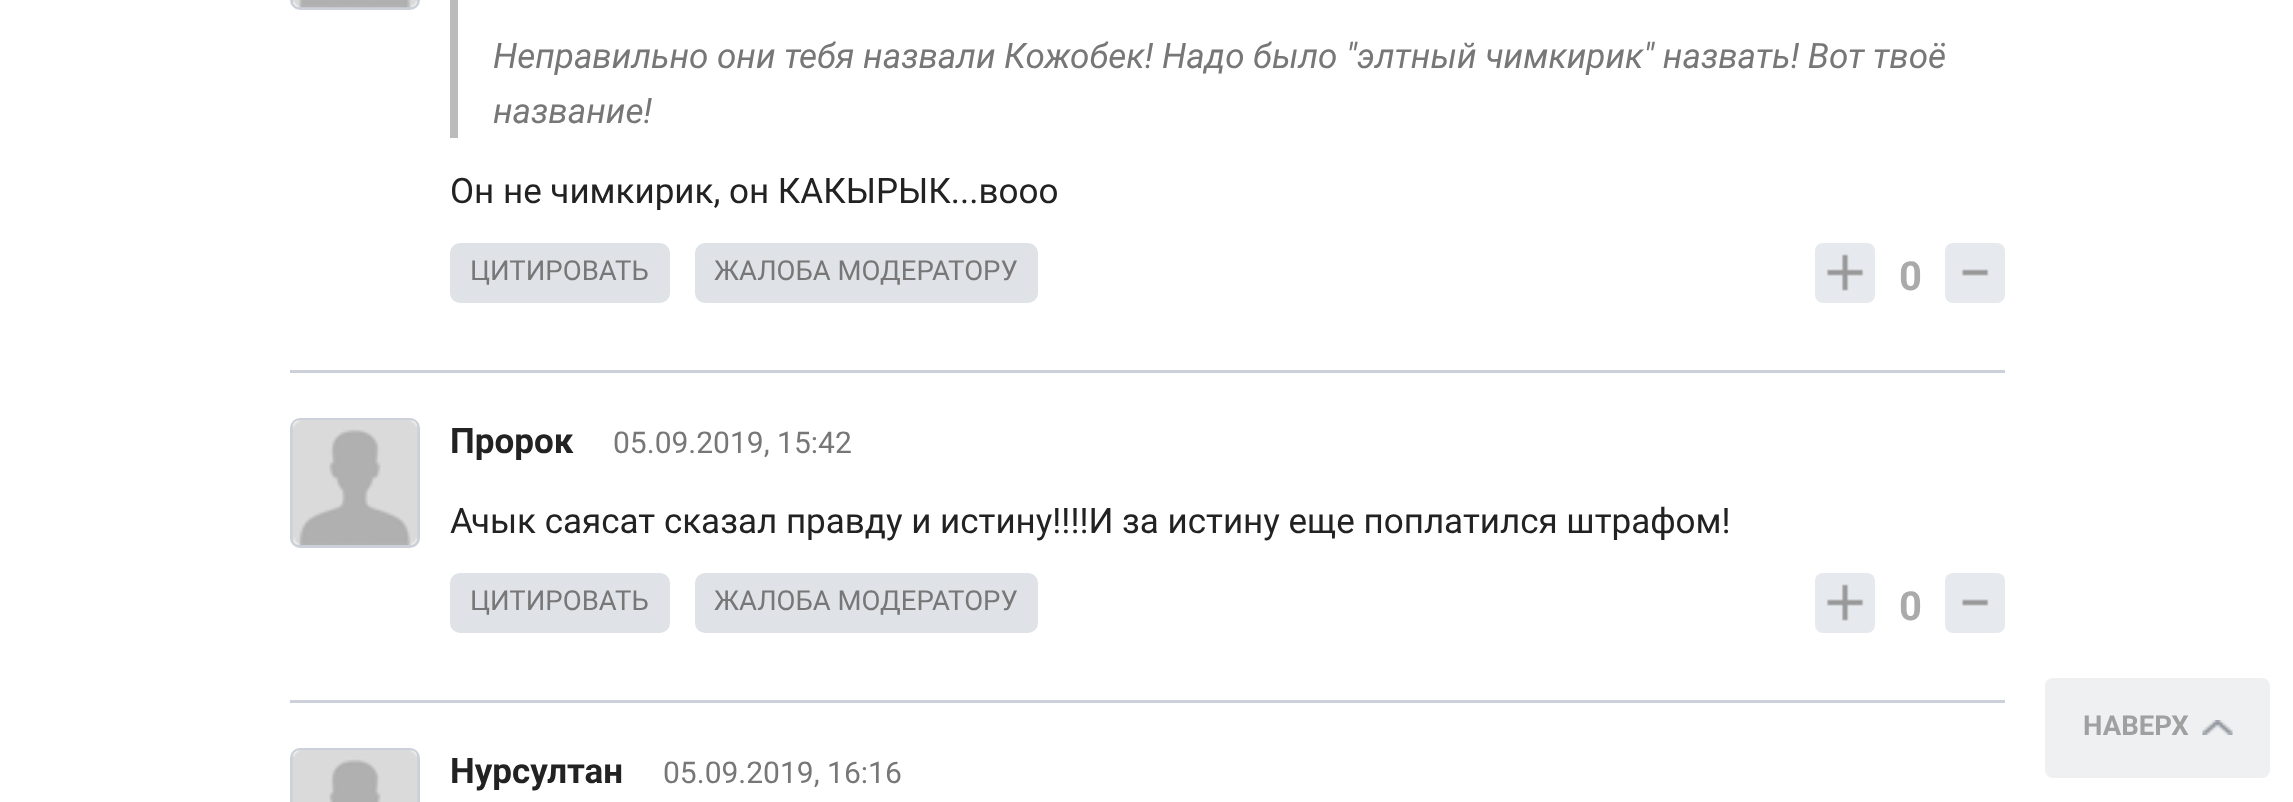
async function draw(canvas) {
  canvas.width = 2293;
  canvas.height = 802;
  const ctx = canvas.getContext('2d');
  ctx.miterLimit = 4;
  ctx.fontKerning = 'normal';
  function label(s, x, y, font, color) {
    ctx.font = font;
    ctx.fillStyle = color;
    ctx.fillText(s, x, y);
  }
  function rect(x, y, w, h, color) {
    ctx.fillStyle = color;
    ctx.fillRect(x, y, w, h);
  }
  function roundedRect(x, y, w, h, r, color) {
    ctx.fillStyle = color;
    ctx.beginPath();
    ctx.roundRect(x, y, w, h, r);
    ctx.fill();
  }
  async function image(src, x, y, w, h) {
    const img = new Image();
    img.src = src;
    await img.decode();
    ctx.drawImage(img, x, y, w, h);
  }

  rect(0, 0, 2293, 802, '#fff');
  ctx.beginPath();
  ctx.roundRect(291.5, -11.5, 127, 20, 8.5);
  ctx.strokeStyle = '#ccd1d9';
  ctx.lineWidth = 3;
  ctx.stroke();
  await image('assets/img1.png', 293, 0, 124, 8);
  rect(450, 0, 8, 138, '#bbb');
  label('Неправильно они тебя назвали Кожобек! Надо было "элтный чимкирик" назвать! Вот твоё', 493, 68, 'italic 35px Roboto', '#777');
  label('название!', 493, 123, 'italic 35px Roboto', '#777');
  label('Он не чимкирик, он КАКЫРЫК...вооо', 450, 203, '35px Roboto', '#222');
  roundedRect(450, 243, 220, 60, 10, '#dfe2e6');
  label('ЦИТИРОВАТЬ', 470, 280, '27.5px Roboto', '#777');
  roundedRect(695, 243, 343, 60, 10, '#dfe2e6');
  label('ЖАЛОБА МОДЕРАТОРУ', 714, 280, '27.5px Roboto', '#777');
  roundedRect(1815, 243, 60, 60, 8, '#e6e9ed');
  await image('assets/img2.png', 1826, 254, 38, 37);
  label('0', 1899, 290, 'bold 40px Roboto', '#aaa');
  roundedRect(1945, 243, 60, 60, 8, '#e6e9ed');
  await image('assets/img3.png', 1961, 269, 28, 7);
  rect(290, 370, 1715, 3, '#ccd1d9');
  ctx.beginPath();
  ctx.roundRect(291.5, 419.5, 127, 127, 8.5);
  ctx.stroke();
  await image('assets/img4.png', 292, 420, 126, 125);
  label('Пророк', 450, 453, 'bold 35px Roboto', '#222');
  label('05.09.2019, 15:42', 613, 453, '30px Roboto', '#777');
  label('Ачык саясат сказал правду и истину!!!!И за истину еще поплатился штрафом!', 450, 533, '35px Roboto', '#222');
  roundedRect(450, 573, 220, 60, 10, '#dfe2e6');
  label('ЦИТИРОВАТЬ', 470, 610, '27.5px Roboto', '#777');
  roundedRect(695, 573, 343, 60, 10, '#dfe2e6');
  label('ЖАЛОБА МОДЕРАТОРУ', 714, 610, '27.5px Roboto', '#777');
  roundedRect(1815, 573, 60, 60, 8, '#e6e9ed');
  await image('assets/img2.png', 1826, 584, 38, 37);
  label('0', 1899, 620, 'bold 40px Roboto', '#aaa');
  roundedRect(1945, 573, 60, 60, 8, '#e6e9ed');
  await image('assets/img3.png', 1961, 599, 28, 7);
  rect(290, 700, 1715, 3, '#ccd1d9');
  ctx.beginPath();
  ctx.roundRect(291.5, 749.5, 127, 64, 8.5);
  ctx.stroke();
  await image('assets/img5.png', 292, 750, 126, 52);
  label('Нурсултан', 450, 783, 'bold 35px Roboto', '#222');
  label('05.09.2019, 16:16', 663, 783, '30px Roboto', '#777');
  roundedRect(2045, 678, 225, 100, 8, '#eef0f2');
  label('НАВЕРХ', 2083, 735, 'bold 27.5px Roboto', '#a0a0a0');
  await image('assets/img6.png', 2202, 720, 31, 15);
}

draw(document.querySelector('canvas'));
